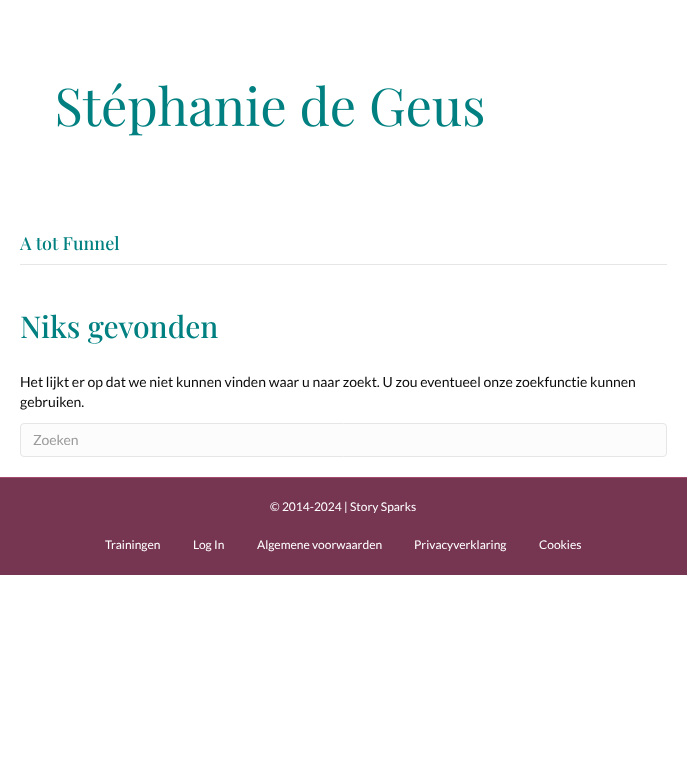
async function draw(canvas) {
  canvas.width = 687;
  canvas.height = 784;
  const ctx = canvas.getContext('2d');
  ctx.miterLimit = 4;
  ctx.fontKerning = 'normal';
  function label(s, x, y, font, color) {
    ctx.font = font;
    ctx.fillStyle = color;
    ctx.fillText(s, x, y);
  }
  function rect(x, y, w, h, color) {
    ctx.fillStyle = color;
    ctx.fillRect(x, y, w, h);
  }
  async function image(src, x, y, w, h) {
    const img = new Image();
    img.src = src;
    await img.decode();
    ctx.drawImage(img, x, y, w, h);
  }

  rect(0, 0, 687, 784, '#fff');
  await image('assets/img1.png', 57, 83, 426, 53);
  rect(20, 264, 647, 1, '#e6e6e6');
  label('A tot Funnel', 20, 250, '500 18px Playfair Display', '#008080');
  label('Niks gevonden', 20, 338, '500 30px Playfair Display', '#008080');
  label('Het lijkt er op dat we niet kunnen vinden waar u naar zoekt. U zou eventueel onze zoekfunctie kunnen', 20, 387, '14px Lato', '#0a0a0a');
  label('gebruiken.', 20, 407, '14px Lato', '#0a0a0a');
  ctx.fillStyle = '#fcfcfc';
  ctx.beginPath();
  ctx.roundRect(20.5, 423.5, 646, 33, 3.5);
  ctx.fill();
  ctx.strokeStyle = '#e6e6e6';
  ctx.stroke();
  label('Zoeken', 33, 445, '14px Lato', '#9b9b9b');
  rect(0, 478, 687, 97, '#763550');
  rect(0, 477, 687, 1, '#a44a6f');
  label('© 2014-2024 | Story Sparks', 270, 511, '12px Lato', '#fff');
  label('Trainingen', 105, 549, '12px Lato', '#fff');
  label('Log In', 193, 549, '12px Lato', '#fff');
  label('Algemene voorwaarden', 257, 549, '12px Lato', '#fff');
  label('Privacyverklaring', 414, 549, '12px Lato', '#fff');
  label('Cookies', 539, 549, '12px Lato', '#fff');
}

draw(document.querySelector('canvas'));
